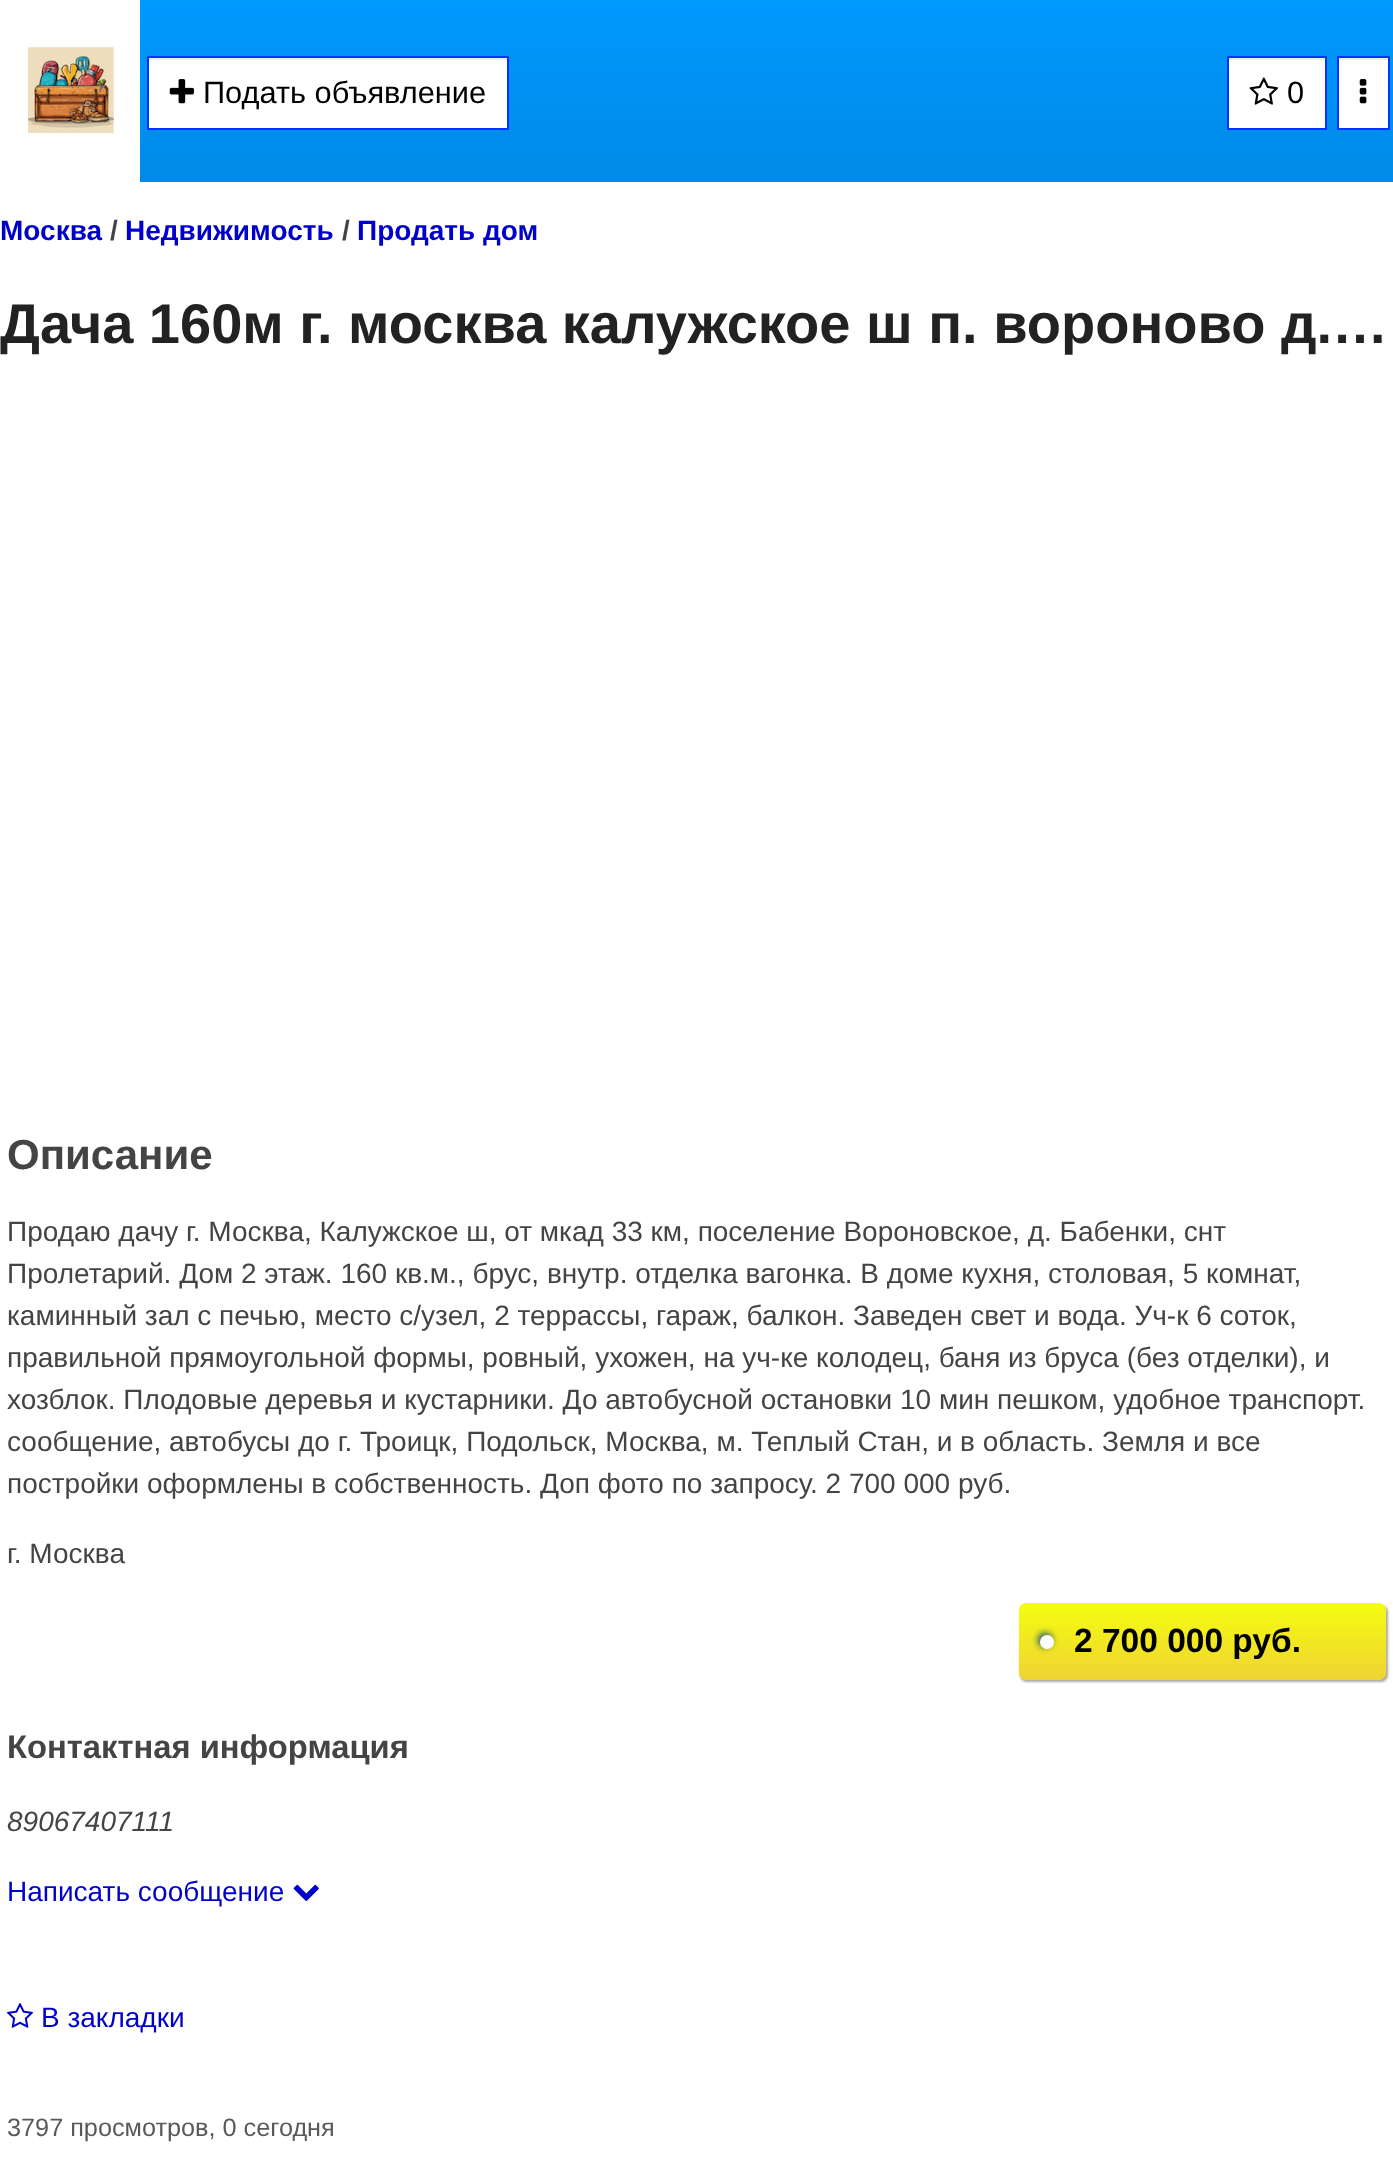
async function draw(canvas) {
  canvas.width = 1393;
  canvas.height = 2157;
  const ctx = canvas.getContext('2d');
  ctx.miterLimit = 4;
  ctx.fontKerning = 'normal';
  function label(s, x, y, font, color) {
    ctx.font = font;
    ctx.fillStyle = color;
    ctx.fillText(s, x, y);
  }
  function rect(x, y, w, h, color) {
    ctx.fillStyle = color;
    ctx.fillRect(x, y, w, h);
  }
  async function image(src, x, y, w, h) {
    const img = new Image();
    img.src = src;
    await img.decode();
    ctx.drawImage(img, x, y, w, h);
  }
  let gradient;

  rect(0, 0, 1393, 2157, '#fff');
  gradient = ctx.createLinearGradient(0, 0, 0, 182);
  gradient.addColorStop(0, '#09f');
  gradient.addColorStop(1, '#008ae6');
  ctx.fillStyle = gradient;
  ctx.fillRect(140, 0, 1253, 182);
  await image('assets/img1.png', 28, 47, 86, 86);
  rect(149, 60, 358, 68, '#fff');
  rect(149, 58, 359, 2, '#ececec');
  ctx.strokeStyle = '#03f';
  ctx.lineWidth = 2;
  ctx.strokeRect(148, 57, 360, 72);
  await image('assets/img2.png', 169, 79, 25, 25);
  label('Подать объявление', 203, 103, '30.75px Liberation Sans', '#000');
  rect(1229, 60, 96, 68, '#fff');
  rect(1229, 58, 96, 2, '#ececec');
  ctx.strokeRect(1228, 57, 98, 72);
  await image('assets/img3.png', 1249, 77, 29, 28);
  label('0', 1287, 103, '30.75px Liberation Sans', '#000');
  rect(1339, 60, 49, 68, '#fff');
  rect(1339, 58, 49, 2, '#ececec');
  ctx.strokeRect(1338, 57, 51, 72);
  await image('assets/img4.png', 1359, 79, 8, 25);
  label('Москва', 0, 240, 'bold 28px Liberation Sans', '#00c');
  label('/', 110, 240, 'bold 28px Liberation Sans', '#444');
  label('Недвижимость', 125, 240, 'bold 28px Liberation Sans', '#00c');
  label('/', 342, 240, 'bold 28px Liberation Sans', '#444');
  label('Продать дом', 357, 240, 'bold 28px Liberation Sans', '#00c');
  label('Дача 160м г. москва калужское ш п. вороново д.…', 0, 343, 'bold 56px Liberation Sans', '#222');
  label('Описание', 7, 1169, 'bold 42px Liberation Sans', '#444');
  label('Продаю дачу г. Москва, Калужское ш, от мкад 33 км, поселение Вороновское, д. Бабенки, снт', 7, 1241, '28px Liberation Sans', '#444');
  label('Пролетарий. Дом 2 этаж. 160 кв.м., брус, внутр. отделка вагонка. В доме кухня, столовая, 5 комнат,', 7, 1283, '28px Liberation Sans', '#444');
  label('каминный зал с печью, место с/узел, 2 террассы, гараж, балкон. Заведен свет и вода. Уч-к 6 соток,', 7, 1325, '28px Liberation Sans', '#444');
  label('правильной прямоугольной формы, ровный, ухожен, на уч-ке колодец, баня из бруса (без отделки), и', 7, 1367, '28px Liberation Sans', '#444');
  label('хозблок. Плодовые деревья и кустарники. До автобусной остановки 10 мин пешком, удобное транспорт.', 7, 1409, '28px Liberation Sans', '#444');
  label('сообщение, автобусы до г. Троицк, Подольск, Москва, м. Теплый Стан, и в область. Земля и все', 7, 1451, '28px Liberation Sans', '#444');
  label('постройки оформлены в собственность. Доп фото по запросу. 2 700 000 руб.', 7, 1493, '28px Liberation Sans', '#444');
  label('г. Москва', 7, 1563, '28px Liberation Sans', '#444');
  ctx.fillStyle = '#aaa';
  ctx.filter = 'blur(1px)';
  ctx.beginPath();
  ctx.roundRect(1020, 1605, 368, 77, 7);
  ctx.fill();
  ctx.filter = 'none';
  gradient = ctx.createLinearGradient(1019, 1603, 1019, 1680);
  gradient.addColorStop(0, '#f4fd0f');
  gradient.addColorStop(1, '#efd334');
  ctx.fillStyle = gradient;
  ctx.beginPath();
  ctx.roundRect(1019, 1603, 367, 77, 7);
  ctx.fill();
  ctx.fillStyle = '#004977';
  ctx.filter = 'blur(3.5px)';
  ctx.beginPath();
  ctx.roundRect(1038, 1633, 14, 14, 7);
  ctx.fill();
  ctx.filter = 'none';
  ctx.fillStyle = '#fff';
  ctx.beginPath();
  ctx.arc(1047, 1642, 7, 0, 2 * Math.PI);
  ctx.fill();
  label('2 700 000 руб.', 1074, 1652, 'bold 33.5px Liberation Sans', '#000');
  label('Контактная информация', 7, 1758, 'bold 32.75px Liberation Sans', '#444');
  label('89067407111', 7, 1831, 'italic 28px Liberation Sans', '#444');
  label('Написать сообщение', 7, 1901, '28px Liberation Sans', '#00c');
  await image('assets/img5.png', 293, 1884, 26, 17);
  await image('assets/img6.png', 7, 2003, 26, 25);
  label('В закладки', 41, 2027, '28px Liberation Sans', '#00c');
  label('3797 просмотров, 0 сегодня', 7, 2136, '25.25px Liberation Sans', '#595959');
}

draw(document.querySelector('canvas'));
